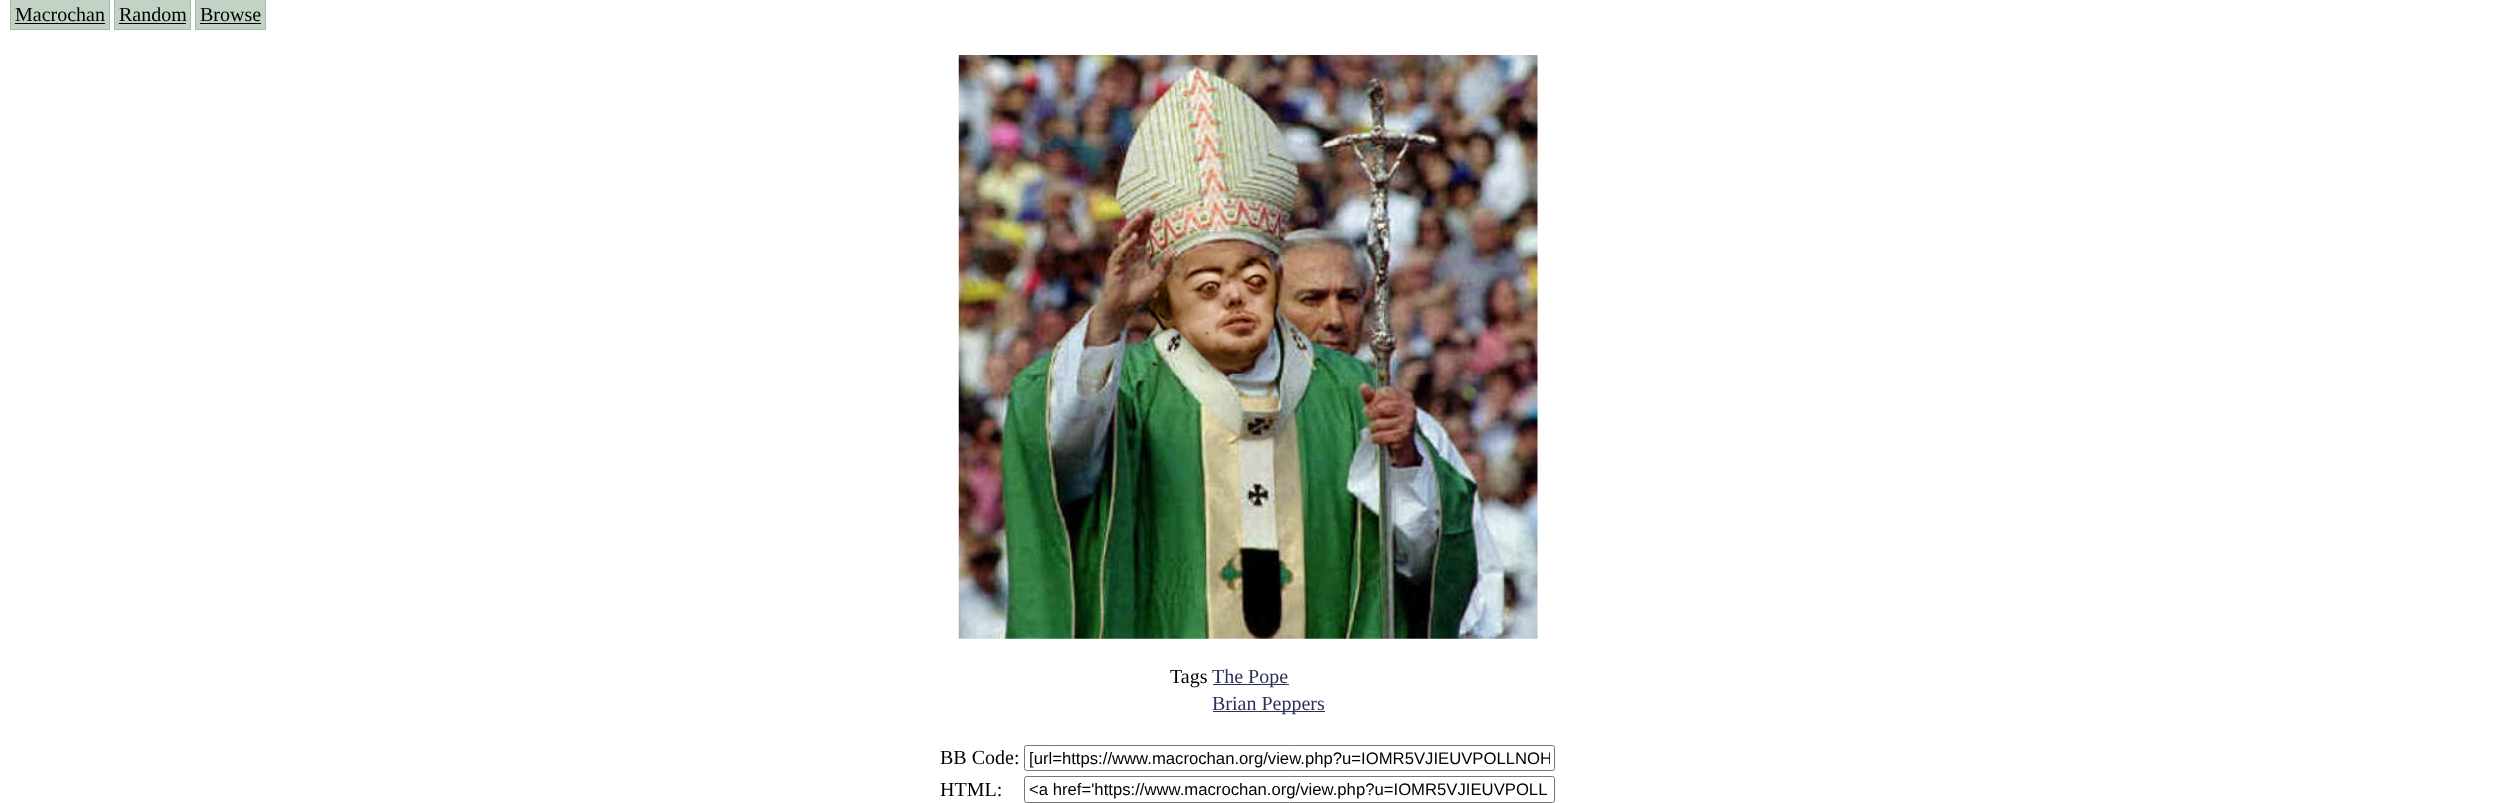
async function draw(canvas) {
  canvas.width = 2494;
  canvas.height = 803;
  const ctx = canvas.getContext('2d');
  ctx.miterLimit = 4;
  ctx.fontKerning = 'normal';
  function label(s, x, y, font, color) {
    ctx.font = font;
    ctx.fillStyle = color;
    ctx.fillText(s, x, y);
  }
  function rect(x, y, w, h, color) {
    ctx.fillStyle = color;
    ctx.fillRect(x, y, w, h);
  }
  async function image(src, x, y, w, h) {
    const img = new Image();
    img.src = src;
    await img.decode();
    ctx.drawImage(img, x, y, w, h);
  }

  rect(0, 0, 2494, 803, '#fff');
  ctx.fillStyle = '#c2d3c5';
  ctx.beginPath();
  ctx.rect(10.5, -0.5, 99, 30);
  ctx.fill();
  ctx.strokeStyle = '#a3bca7';
  ctx.stroke();
  label('Macrochan', 15, 21, '20px Liberation Serif', '#000');
  rect(15, 23, 90, 1, '#000');
  ctx.fillStyle = '#c2d3c5';
  ctx.beginPath();
  ctx.rect(114.5, -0.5, 76, 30);
  ctx.fill();
  ctx.stroke();
  label('Random', 119, 21, '20px Liberation Serif', '#000');
  rect(119, 23, 67, 1, '#000');
  ctx.fillStyle = '#c2d3c5';
  ctx.beginPath();
  ctx.rect(195.5, -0.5, 70, 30);
  ctx.fill();
  ctx.stroke();
  label('Browse', 200, 21, '20px Liberation Serif', '#000');
  rect(200, 23, 61, 1, '#000');
  await image('assets/img1.png', 958, 55, 580, 584);
  label('Tags', 1170, 683, '20px Liberation Serif', '#000');
  rect(1213, 684, 76, 1, '#2d305b');
  label('The Pope', 1212, 683, '20px Liberation Serif', '#2d305b');
  rect(1213, 711, 112, 1, '#2d305b');
  label('Brian Peppers', 1212, 710, '20px Liberation Serif', '#2d305b');
  label('BB Code:', 940, 764, '20px Liberation Serif', '#000');
  ctx.beginPath();
  ctx.roundRect(1024.5, 745.5, 530, 25, 2);
  ctx.strokeStyle = '#767676';
  ctx.stroke();
  ctx.save();
  ctx.beginPath();
  ctx.rect(1029, 749, 521, 19);
  ctx.clip();
  label('[url=https://www.macrochan.org/view.php?u=IOMR5VJIEUVPOLLNOH', 1029, 764, '16.7px Liberation Sans', '#000');
  ctx.restore();
  label('HTML:', 940, 796, '20px Liberation Serif', '#000');
  ctx.beginPath();
  ctx.roundRect(1024.5, 776.5, 530, 26, 2);
  ctx.stroke();
  label('<a href=\'https://www.macrochan.org/view.php?u=IOMR5VJIEUVPOLL', 1029, 795, '16.7px Liberation Sans', '#000');
}

draw(document.querySelector('canvas'));
